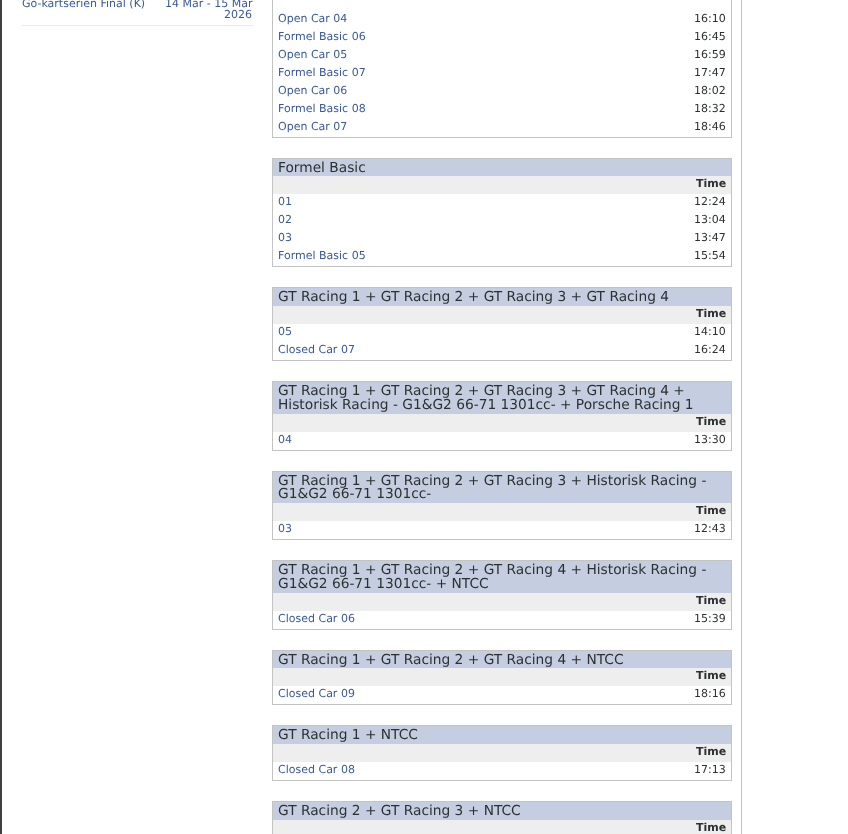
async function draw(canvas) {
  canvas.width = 848;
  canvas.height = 834;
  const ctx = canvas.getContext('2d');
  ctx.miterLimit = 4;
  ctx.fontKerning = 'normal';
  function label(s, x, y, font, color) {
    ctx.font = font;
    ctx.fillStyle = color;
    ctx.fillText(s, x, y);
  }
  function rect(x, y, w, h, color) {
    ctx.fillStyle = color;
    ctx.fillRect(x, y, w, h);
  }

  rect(0, 0, 848, 834, '#fff');
  rect(0, 0, 2, 834, '#404040');
  label('Go-kartserien Final (K)', 22, 7, '11px DejaVu Sans', '#3b5997');
  rect(22, 25, 231, 1, '#e2eef0');
  label('14 Mar - 15 Mar', 165, 7, '11px DejaVu Sans', '#3b5997');
  label('2026', 224, 18, '11px DejaVu Sans', '#3b5997');
  rect(741, 0, 1, 834, '#c4c3c3');
  ctx.strokeStyle = '#c4c3c3';
  ctx.strokeRect(272.5, -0.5, 459, 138);
  label('Open Car 04', 278, 22, '11px DejaVu Sans', '#3b5997');
  label('16:10', 694, 22, '11px DejaVu Sans', '#2c3030');
  label('Formel Basic 06', 278, 40, '11px DejaVu Sans', '#3b5997');
  label('16:45', 694, 40, '11px DejaVu Sans', '#2c3030');
  label('Open Car 05', 278, 58, '11px DejaVu Sans', '#3b5997');
  label('16:59', 694, 58, '11px DejaVu Sans', '#2c3030');
  label('Formel Basic 07', 278, 76, '11px DejaVu Sans', '#3b5997');
  label('17:47', 694, 76, '11px DejaVu Sans', '#2c3030');
  label('Open Car 06', 278, 94, '11px DejaVu Sans', '#3b5997');
  label('18:02', 694, 94, '11px DejaVu Sans', '#2c3030');
  label('Formel Basic 08', 278, 112, '11px DejaVu Sans', '#3b5997');
  label('18:32', 694, 112, '11px DejaVu Sans', '#2c3030');
  label('Open Car 07', 278, 130, '11px DejaVu Sans', '#3b5997');
  label('18:46', 694, 130, '11px DejaVu Sans', '#2c3030');
  ctx.strokeRect(272.5, 158.5, 459, 108);
  rect(273, 159, 458, 17, '#c5cee0');
  label('Formel Basic', 278, 172, '13.75px DejaVu Sans', '#2c3030');
  rect(273, 176, 458, 18, '#eee');
  label('Time', 696, 187, 'bold 11px DejaVu Sans', '#2c3030');
  label('01', 278, 205, '11px DejaVu Sans', '#3b5997');
  label('12:24', 694, 205, '11px DejaVu Sans', '#2c3030');
  label('02', 278, 223, '11px DejaVu Sans', '#3b5997');
  label('13:04', 694, 223, '11px DejaVu Sans', '#2c3030');
  label('03', 278, 241, '11px DejaVu Sans', '#3b5997');
  label('13:47', 694, 241, '11px DejaVu Sans', '#2c3030');
  label('Formel Basic 05', 278, 259, '11px DejaVu Sans', '#3b5997');
  label('15:54', 694, 259, '11px DejaVu Sans', '#2c3030');
  ctx.strokeRect(272.5, 287.5, 459, 73);
  rect(273, 288, 458, 18, '#c5cee0');
  label('GT Racing 1 + GT Racing 2 + GT Racing 3 + GT Racing 4', 278, 301, '13.75px DejaVu Sans', '#2c3030');
  rect(273, 306, 458, 18, '#eee');
  label('Time', 696, 317, 'bold 11px DejaVu Sans', '#2c3030');
  label('05', 278, 335, '11px DejaVu Sans', '#3b5997');
  label('14:10', 694, 335, '11px DejaVu Sans', '#2c3030');
  label('Closed Car 07', 278, 353, '11px DejaVu Sans', '#3b5997');
  label('16:24', 694, 353, '11px DejaVu Sans', '#2c3030');
  ctx.strokeRect(272.5, 381.5, 459, 69);
  rect(273, 382, 458, 32, '#c5cee0');
  label('GT Racing 1 + GT Racing 2 + GT Racing 3 + GT Racing 4 +', 278, 395, '13.75px DejaVu Sans', '#2c3030');
  label('Historisk Racing - G1&G2 66-71 1301cc- + Porsche Racing 1', 278, 409, '13.75px DejaVu Sans', '#2c3030');
  rect(273, 414, 458, 18, '#eee');
  label('Time', 696, 425, 'bold 11px DejaVu Sans', '#2c3030');
  label('04', 278, 443, '11px DejaVu Sans', '#3b5997');
  label('13:30', 694, 443, '11px DejaVu Sans', '#2c3030');
  ctx.strokeRect(272.5, 471.5, 459, 68);
  rect(273, 472, 458, 31, '#c5cee0');
  label('GT Racing 1 + GT Racing 2 + GT Racing 3 + Historisk Racing -', 278, 485, '13.75px DejaVu Sans', '#2c3030');
  label('G1&G2 66-71 1301cc-', 278, 498, '13.75px DejaVu Sans', '#2c3030');
  rect(273, 503, 458, 18, '#eee');
  label('Time', 696, 514, 'bold 11px DejaVu Sans', '#2c3030');
  label('03', 278, 532, '11px DejaVu Sans', '#3b5997');
  label('12:43', 694, 532, '11px DejaVu Sans', '#2c3030');
  ctx.strokeRect(272.5, 560.5, 459, 69);
  rect(273, 561, 458, 32, '#c5cee0');
  label('GT Racing 1 + GT Racing 2 + GT Racing 4 + Historisk Racing -', 278, 574, '13.75px DejaVu Sans', '#2c3030');
  label('G1&G2 66-71 1301cc- + NTCC', 278, 588, '13.75px DejaVu Sans', '#2c3030');
  rect(273, 593, 458, 18, '#eee');
  label('Time', 696, 604, 'bold 11px DejaVu Sans', '#2c3030');
  label('Closed Car 06', 278, 622, '11px DejaVu Sans', '#3b5997');
  label('15:39', 694, 622, '11px DejaVu Sans', '#2c3030');
  ctx.strokeRect(272.5, 650.5, 459, 54);
  rect(273, 651, 458, 17, '#c5cee0');
  label('GT Racing 1 + GT Racing 2 + GT Racing 4 + NTCC', 278, 664, '13.75px DejaVu Sans', '#2c3030');
  rect(273, 668, 458, 18, '#eee');
  label('Time', 696, 679, 'bold 11px DejaVu Sans', '#2c3030');
  label('Closed Car 09', 278, 697, '11px DejaVu Sans', '#3b5997');
  label('18:16', 694, 697, '11px DejaVu Sans', '#2c3030');
  ctx.strokeRect(272.5, 725.5, 459, 55);
  rect(273, 726, 458, 18, '#c5cee0');
  label('GT Racing 1 + NTCC', 278, 739, '13.75px DejaVu Sans', '#2c3030');
  rect(273, 744, 458, 18, '#eee');
  label('Time', 696, 755, 'bold 11px DejaVu Sans', '#2c3030');
  label('Closed Car 08', 278, 773, '11px DejaVu Sans', '#3b5997');
  label('17:13', 694, 773, '11px DejaVu Sans', '#2c3030');
  ctx.strokeRect(272.5, 801.5, 459, 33);
  rect(273, 802, 458, 18, '#c5cee0');
  label('GT Racing 2 + GT Racing 3 + NTCC', 278, 815, '13.75px DejaVu Sans', '#2c3030');
  rect(273, 820, 458, 14, '#eee');
  label('Time', 696, 831, 'bold 11px DejaVu Sans', '#2c3030');
}

draw(document.querySelector('canvas'));
